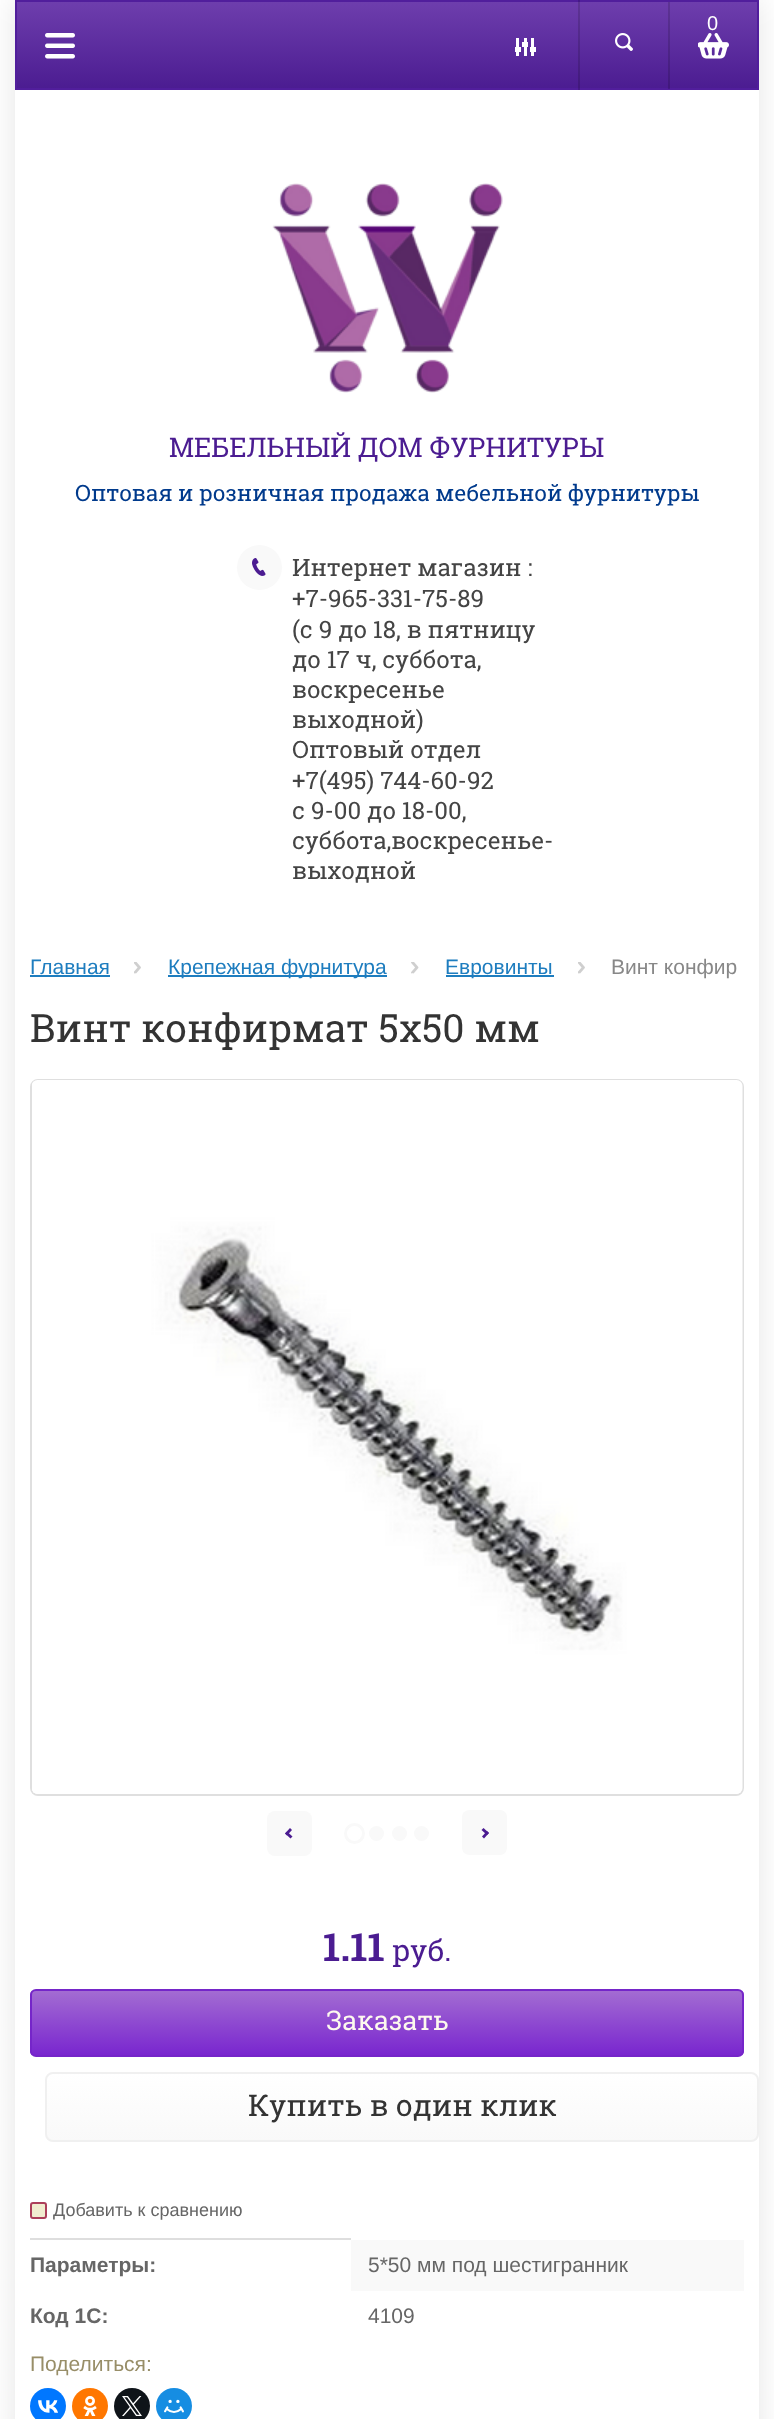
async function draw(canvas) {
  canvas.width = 774;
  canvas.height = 2419;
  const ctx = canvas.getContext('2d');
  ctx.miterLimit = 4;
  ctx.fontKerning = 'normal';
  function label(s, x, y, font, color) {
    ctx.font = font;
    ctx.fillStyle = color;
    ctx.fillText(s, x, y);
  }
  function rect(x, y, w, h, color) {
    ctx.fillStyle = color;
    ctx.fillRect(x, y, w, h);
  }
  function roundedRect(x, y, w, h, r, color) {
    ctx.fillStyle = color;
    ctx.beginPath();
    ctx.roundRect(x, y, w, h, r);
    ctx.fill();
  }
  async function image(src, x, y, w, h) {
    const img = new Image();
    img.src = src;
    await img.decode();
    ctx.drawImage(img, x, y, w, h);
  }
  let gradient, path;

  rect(0, 0, 774, 2419, '#fff');
  ctx.save();
  path = new Path2D('M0 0H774V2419H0ZM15 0H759V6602H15Z');
  ctx.clip(path, 'evenodd');
  ctx.fillStyle = '#0000001a';
  ctx.filter = 'blur(15px)';
  ctx.beginPath();
  ctx.rect(15, 0, 744, 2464);
  ctx.fill();
  ctx.filter = 'none';
  ctx.restore();
  gradient = ctx.createLinearGradient(387, 1.5, 387, 89);
  gradient.addColorStop(0, '#6e3ead');
  gradient.addColorStop(1, '#4b1c91');
  ctx.fillStyle = gradient;
  ctx.fillRect(17, 2, 740, 86);
  ctx.strokeStyle = '#511e9c';
  ctx.lineWidth = 2;
  ctx.strokeRect(16, 1, 742, 88);
  await image('assets/img1.png', 615, 33, 18, 18);
  rect(578, 0, 2, 90, '#00000024');
  rect(668, 2, 2, 87, '#00000024');
  await image('assets/img2.png', 698, 33, 31, 26);
  label('0', 707, 30, '20px Liberation Sans', '#fff');
  await image('assets/img3.png', 45, 33, 30, 26);
  rect(516, 38, 3, 18, '#fff');
  rect(515, 47, 6, 5, '#fff');
  rect(524, 38, 3, 18, '#fff');
  rect(522, 42, 6, 5, '#fff');
  rect(531, 38, 3, 18, '#fff');
  rect(530, 47, 6, 5, '#fff');
  await image('assets/img4.png', 272, 183, 231, 210);
  label('МЕБЕЛЬНЫЙ ДОМ ФУРНИТУРЫ', 169, 457, '27px Roboto Slab', '#4b1c91');
  label('Оптовая и розничная продажа мебельной фурнитуры', 75, 501, '22.5px Roboto Slab', '#003a8c');
  ctx.fillStyle = '#f9f9f9';
  ctx.beginPath();
  ctx.arc(259.5, 567.5, 22.5, 0, 2 * Math.PI);
  ctx.fill();
  await image('assets/img5.png', 252, 558, 14, 18);
  label('Интернет магазин :', 292, 576, '24px Roboto Slab', '#444');
  label('+7-965-331-75-89', 292, 607, '24px Roboto Slab', '#444');
  label('(с 9 до 18, в пятницу', 292, 638, '24px Roboto Slab', '#444');
  label('до 17 ч, суббота,', 292, 668, '24px Roboto Slab', '#444');
  label('воскресенье', 292, 698, '24px Roboto Slab', '#444');
  label('выходной)', 292, 728, '24px Roboto Slab', '#444');
  label('Оптовый отдел', 292, 758, '24px Roboto Slab', '#444');
  label('+7(495) 744-60-92', 292, 789, '24px Roboto Slab', '#444');
  label('с 9-00 до 18-00,', 292, 819, '24px Roboto Slab', '#444');
  label('суббота,воскресенье-', 292, 849, '24px Roboto Slab', '#444');
  label('выходной', 292, 879, '24px Roboto Slab', '#444');
  label('Главная', 30, 974, '21px Liberation Sans', '#1e7dbf');
  rect(30, 975, 80, 2, '#1e7dbf');
  await image('assets/img6.png', 134, 962, 7, 12);
  rect(168, 975, 219, 2, '#1e7dbf');
  label('Крепежная фурнитура', 168, 974, '21px Liberation Sans', '#1e7dbf');
  await image('assets/img7.png', 411, 962, 8, 12);
  rect(446, 975, 108, 2, '#1e7dbf');
  label('Евровинты', 445, 974, '21px Liberation Sans', '#1e7dbf');
  await image('assets/img6.png', 578, 962, 7, 12);
  label('Винт конфир', 611, 974, '21px Liberation Sans', '#888');
  label('Винт конфирмат 5х50 мм', 30, 1042, '39px Roboto Slab', '#333');
  ctx.beginPath();
  ctx.roundRect(31, 1080, 712, 715, 7);
  ctx.strokeStyle = '#dfdfdf';
  ctx.stroke();
  await image('assets/img8.png', 32, 1080, 711, 714);
  roundedRect(267, 1811, 45, 45, 8, '#f9f9f9');
  ctx.fillStyle = '#4b1c91';
  path = new Path2D('M292.5 1836.5L290.5 1838.5L285 1833.5L287 1831.5Z');
  ctx.fill(path);
  path = new Path2D('M292 1830L287 1835.5L285 1833.5L290 1828Z');
  ctx.fill(path);
  ctx.fillStyle = '#f9f9f9';
  path = new Path2D('M500 1855H470C465 1855 462 1852 462 1847V1817C462 1813 465 1810 470 1810H500C504 1810 507 1813 507 1817V1847C507 1852 504 1855 500 1855Z');
  ctx.fill(path);
  ctx.fillStyle = '#4b1c91';
  path = new Path2D('M481.5 1830L483.5 1828L489 1833L487 1835Z');
  ctx.fill(path);
  path = new Path2D('M482 1836.5L487 1831L489 1833L484 1838.5Z');
  ctx.fill(path);
  ctx.beginPath();
  ctx.arc(354.5, 1833.5, 9, 0, 2 * Math.PI);
  ctx.strokeStyle = '#f9f9f9';
  ctx.lineWidth = 3;
  ctx.stroke();
  ctx.fillStyle = '#f9f9f9';
  ctx.beginPath();
  ctx.arc(376.5, 1833.5, 7.5, 0, 2 * Math.PI);
  ctx.fill();
  ctx.beginPath();
  ctx.arc(399.5, 1833.5, 7.5, 0, 2 * Math.PI);
  ctx.fill();
  ctx.beginPath();
  ctx.arc(421.5, 1833.5, 7.5, 0, 2 * Math.PI);
  ctx.fill();
  label('1.11', 323, 1961, 'bold 39px Roboto Slab', '#4b1c91');
  label('руб.', 392, 1961, '30px Roboto Slab', '#4b1c91');
  ctx.save();
  ctx.beginPath();
  ctx.roundRect(30, 1989, 714, 68, 6);
  ctx.clip();
  gradient = ctx.createLinearGradient(387, 1991, 387, 2055);
  gradient.addColorStop(0, '#a36cd2');
  gradient.addColorStop(1, '#7926cf');
  ctx.fillStyle = gradient;
  ctx.fillRect(30, 1991, 714, 64);
  ctx.restore();
  ctx.beginPath();
  ctx.roundRect(31, 1990, 712, 66, 5);
  ctx.strokeStyle = '#7525c9';
  ctx.lineWidth = 2;
  ctx.stroke();
  label('Заказать', 326, 2030, '27px Roboto Slab', '#fdf9ee');
  ctx.save();
  ctx.beginPath();
  ctx.roundRect(45, 2072, 714, 70, 8);
  ctx.clip();
  gradient = ctx.createLinearGradient(402, 2073, 402, 2141);
  gradient.addColorStop(0, '#fff');
  gradient.addColorStop(1, '#f9f9f9');
  ctx.fillStyle = gradient;
  ctx.fillRect(45, 2073, 714, 68);
  ctx.restore();
  ctx.beginPath();
  ctx.roundRect(46, 2073, 712, 68, 7);
  ctx.strokeStyle = '#f0f0f0';
  ctx.stroke();
  label('Купить в один клик', 248, 2116, '30px Roboto Slab', '#333');
  rect(30, 2238, 321, 2, '#dedede');
  ctx.fillStyle = '#f1edcf';
  ctx.beginPath();
  ctx.roundRect(31, 2203, 15, 15, 2);
  ctx.fill();
  ctx.strokeStyle = '#ac405a';
  ctx.stroke();
  label('Добавить к сравнению', 53, 2216, '18px Liberation Sans', '#666');
  label('Параметры:', 30, 2272, 'bold 21px Liberation Sans', '#666');
  rect(351, 2240, 393, 51, '#f9f9f9');
  label('5*50 мм под шестигранник', 368, 2272, '21px Liberation Sans', '#666');
  label('Код 1С:', 30, 2323, 'bold 21px Liberation Sans', '#666');
  label('4109', 368, 2323, '21px Liberation Sans', '#666');
  label('Поделиться:', 30, 2371, '21px Liberation Sans', '#988e68');
  ctx.fillStyle = '#07f';
  ctx.beginPath();
  ctx.arc(48, 2406, 18, 0, 2 * Math.PI);
  ctx.fill();
  await image('assets/img9.png', 38, 2400, 20, 13);
  ctx.fillStyle = '#f70';
  ctx.beginPath();
  ctx.arc(90, 2406, 18, 0, 2 * Math.PI);
  ctx.fill();
  await image('assets/img10.png', 83, 2396, 14, 20);
  ctx.fillStyle = '#0f1419';
  ctx.beginPath();
  ctx.arc(132, 2406, 18, 0, 2 * Math.PI);
  ctx.fill();
  await image('assets/img11.png', 122, 2396, 20, 20);
  ctx.fillStyle = '#168de2';
  ctx.beginPath();
  ctx.arc(174, 2406, 18, 0, 2 * Math.PI);
  ctx.fill();
  await image('assets/img12.png', 164, 2399, 20, 14);
}

draw(document.querySelector('canvas'));
